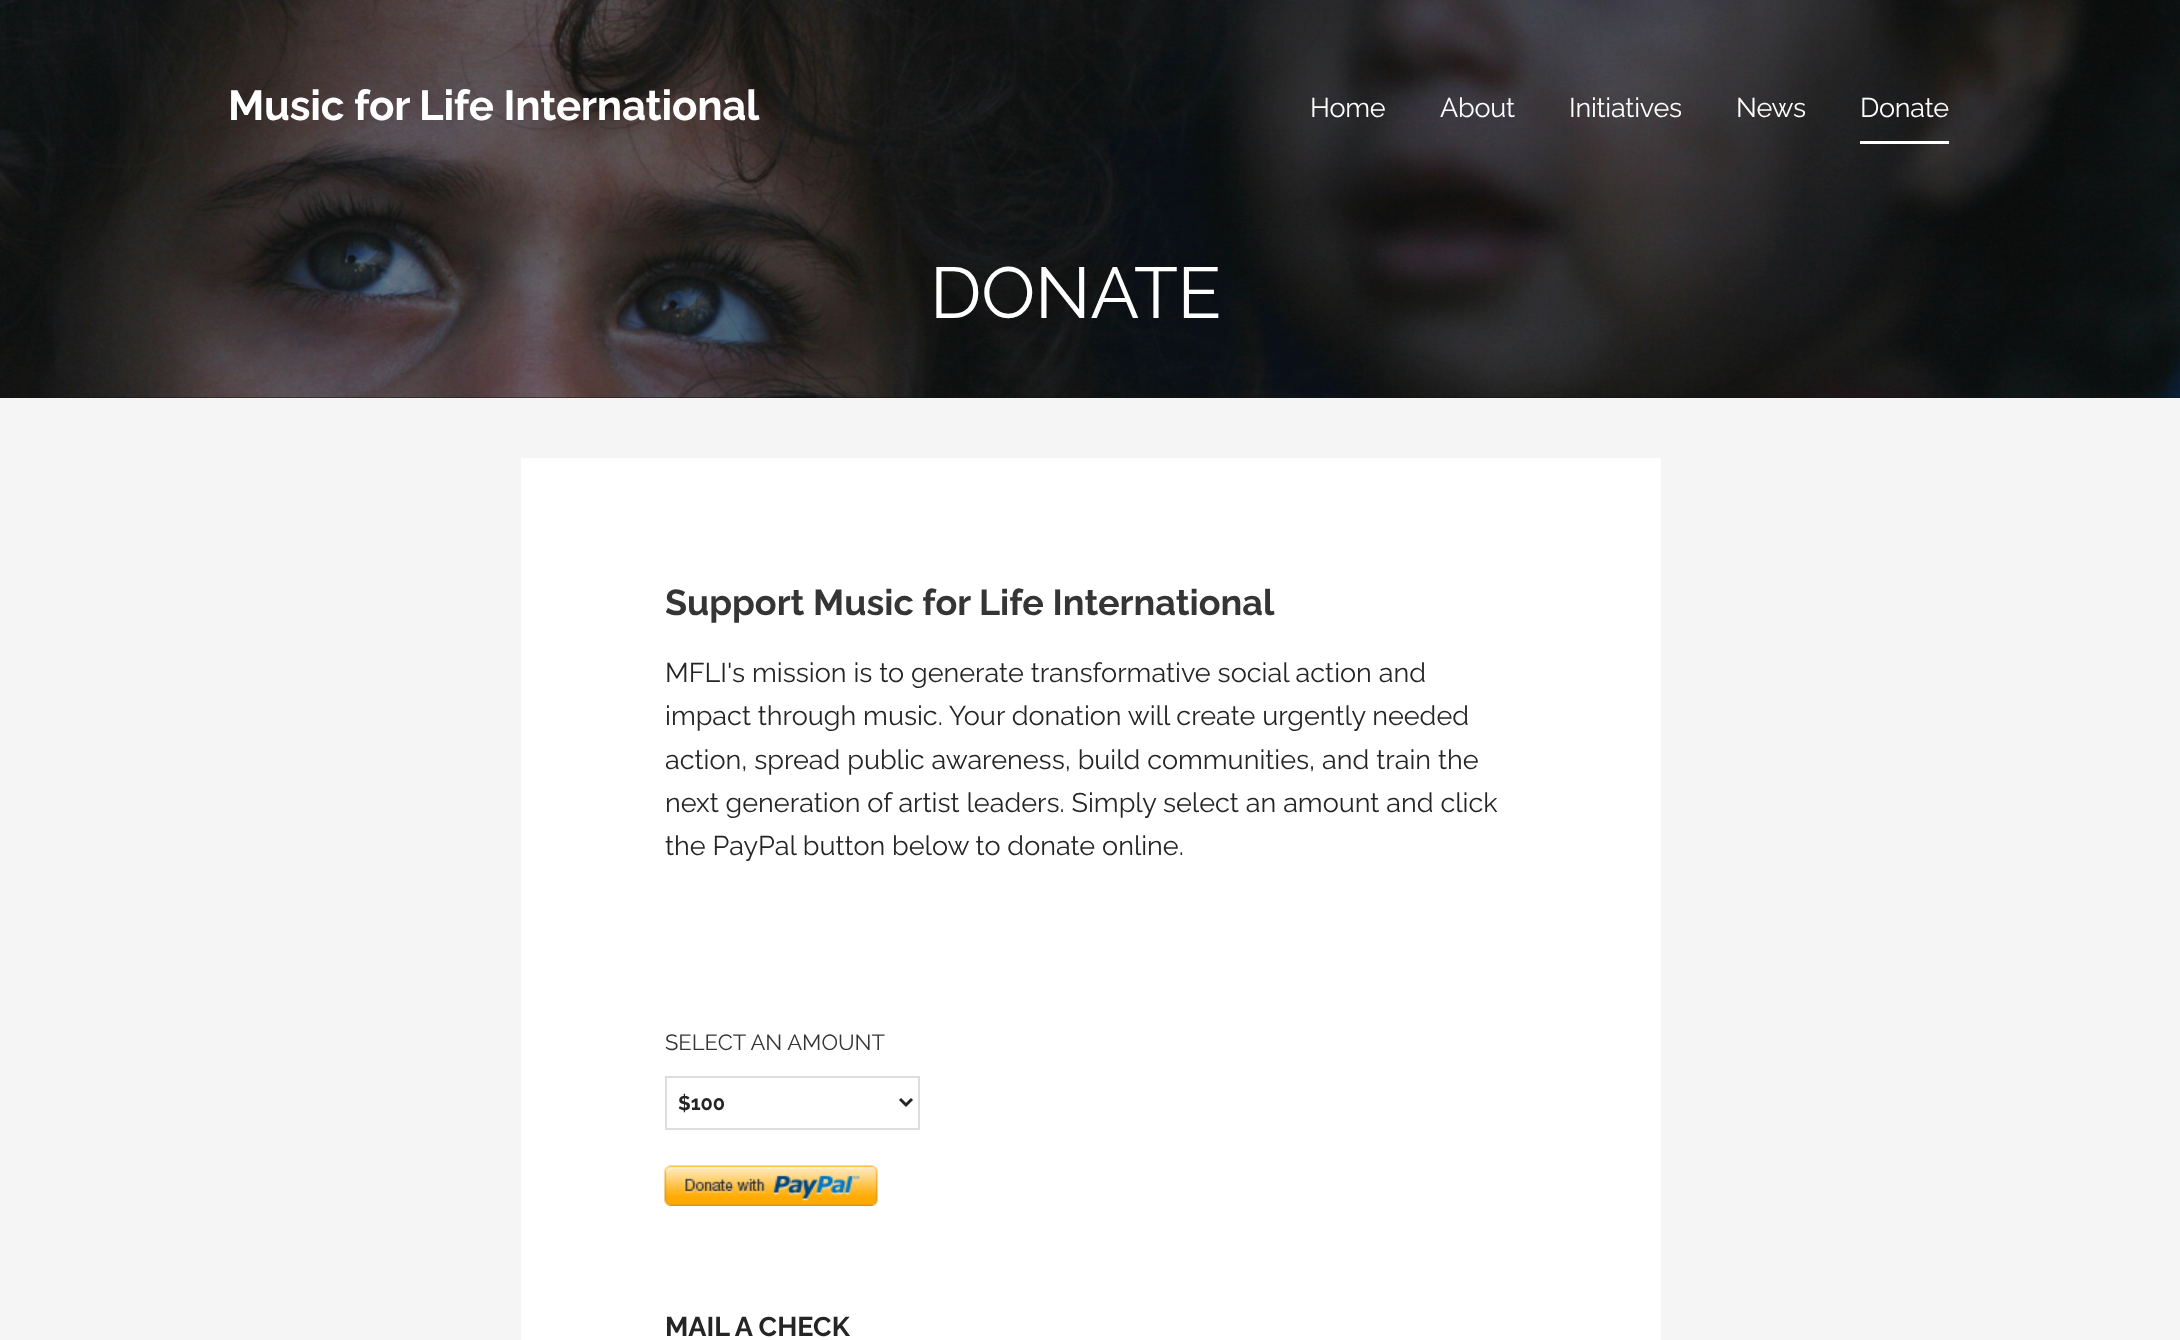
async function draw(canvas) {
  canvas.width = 2180;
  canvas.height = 1340;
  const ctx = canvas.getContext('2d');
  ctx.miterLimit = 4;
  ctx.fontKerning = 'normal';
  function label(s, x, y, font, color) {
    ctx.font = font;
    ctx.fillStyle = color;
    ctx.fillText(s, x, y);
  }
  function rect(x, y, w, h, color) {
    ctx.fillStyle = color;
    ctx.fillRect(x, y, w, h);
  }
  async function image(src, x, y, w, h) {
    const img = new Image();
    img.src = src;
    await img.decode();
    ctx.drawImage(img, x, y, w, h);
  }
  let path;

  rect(0, 0, 2180, 1340, '#f5f5f5');
  rect(0, 397, 2180, 1, '#141414');
  await image('assets/img1.png', 0, 0, 2180, 398);
  ctx.letterSpacing = '-0.25px';
  label('Music for Life International', 228, 120, 'bold 42px Raleway', '#fff');
  label('Home', 1310, 117, '27px Raleway', '#fff');
  label('About', 1440, 117, '27px Raleway', '#fff');
  label('Initiatives', 1569, 117, '27px Raleway', '#fff');
  label('News', 1736, 117, '27px Raleway', '#fff');
  rect(1860, 141, 89, 3, '#fff');
  label('Donate', 1860, 117, '27px Raleway', '#fff');
  label('DONATE', 930, 318, '72px Raleway', '#fff');
  rect(521, 458, 1140, 882, '#fff');
  ctx.letterSpacing = '0px';
  label('Support Music for Life International', 665, 615, 'bold 36px Raleway', '#353535');
  label('MFLI\'s mission is to generate transformative social action and', 665, 682, '27px Raleway', '#252525');
  label('impact through music. Your donation will create urgently needed', 665, 725, '27px Raleway', '#252525');
  label('action, spread public awareness, build communities, and train the', 665, 769, '27px Raleway', '#252525');
  label('next generation of artist leaders. Simply select an amount and click', 665, 812, '27px Raleway', '#252525');
  label('the PayPal button below to donate online.', 665, 855, '27px Raleway', '#252525');
  label('SELECT AN AMOUNT', 665, 1050, '22px Raleway', '#353535');
  ctx.strokeStyle = '#ddd';
  ctx.lineWidth = 2;
  ctx.strokeRect(666, 1077, 253, 52);
  path = new Path2D('M900 1099L906 1105L912 1099');
  ctx.strokeStyle = '#252525';
  ctx.lineWidth = 3;
  ctx.stroke(path);
  label('$100', 678, 1110, 'bold 20px Raleway', '#252525');
  await image('assets/img2.png', 664, 1165, 214, 41);
  label('MAIL A CHECK', 665, 1336, 'bold 27px Raleway', '#252525');
}

draw(document.querySelector('canvas'));
